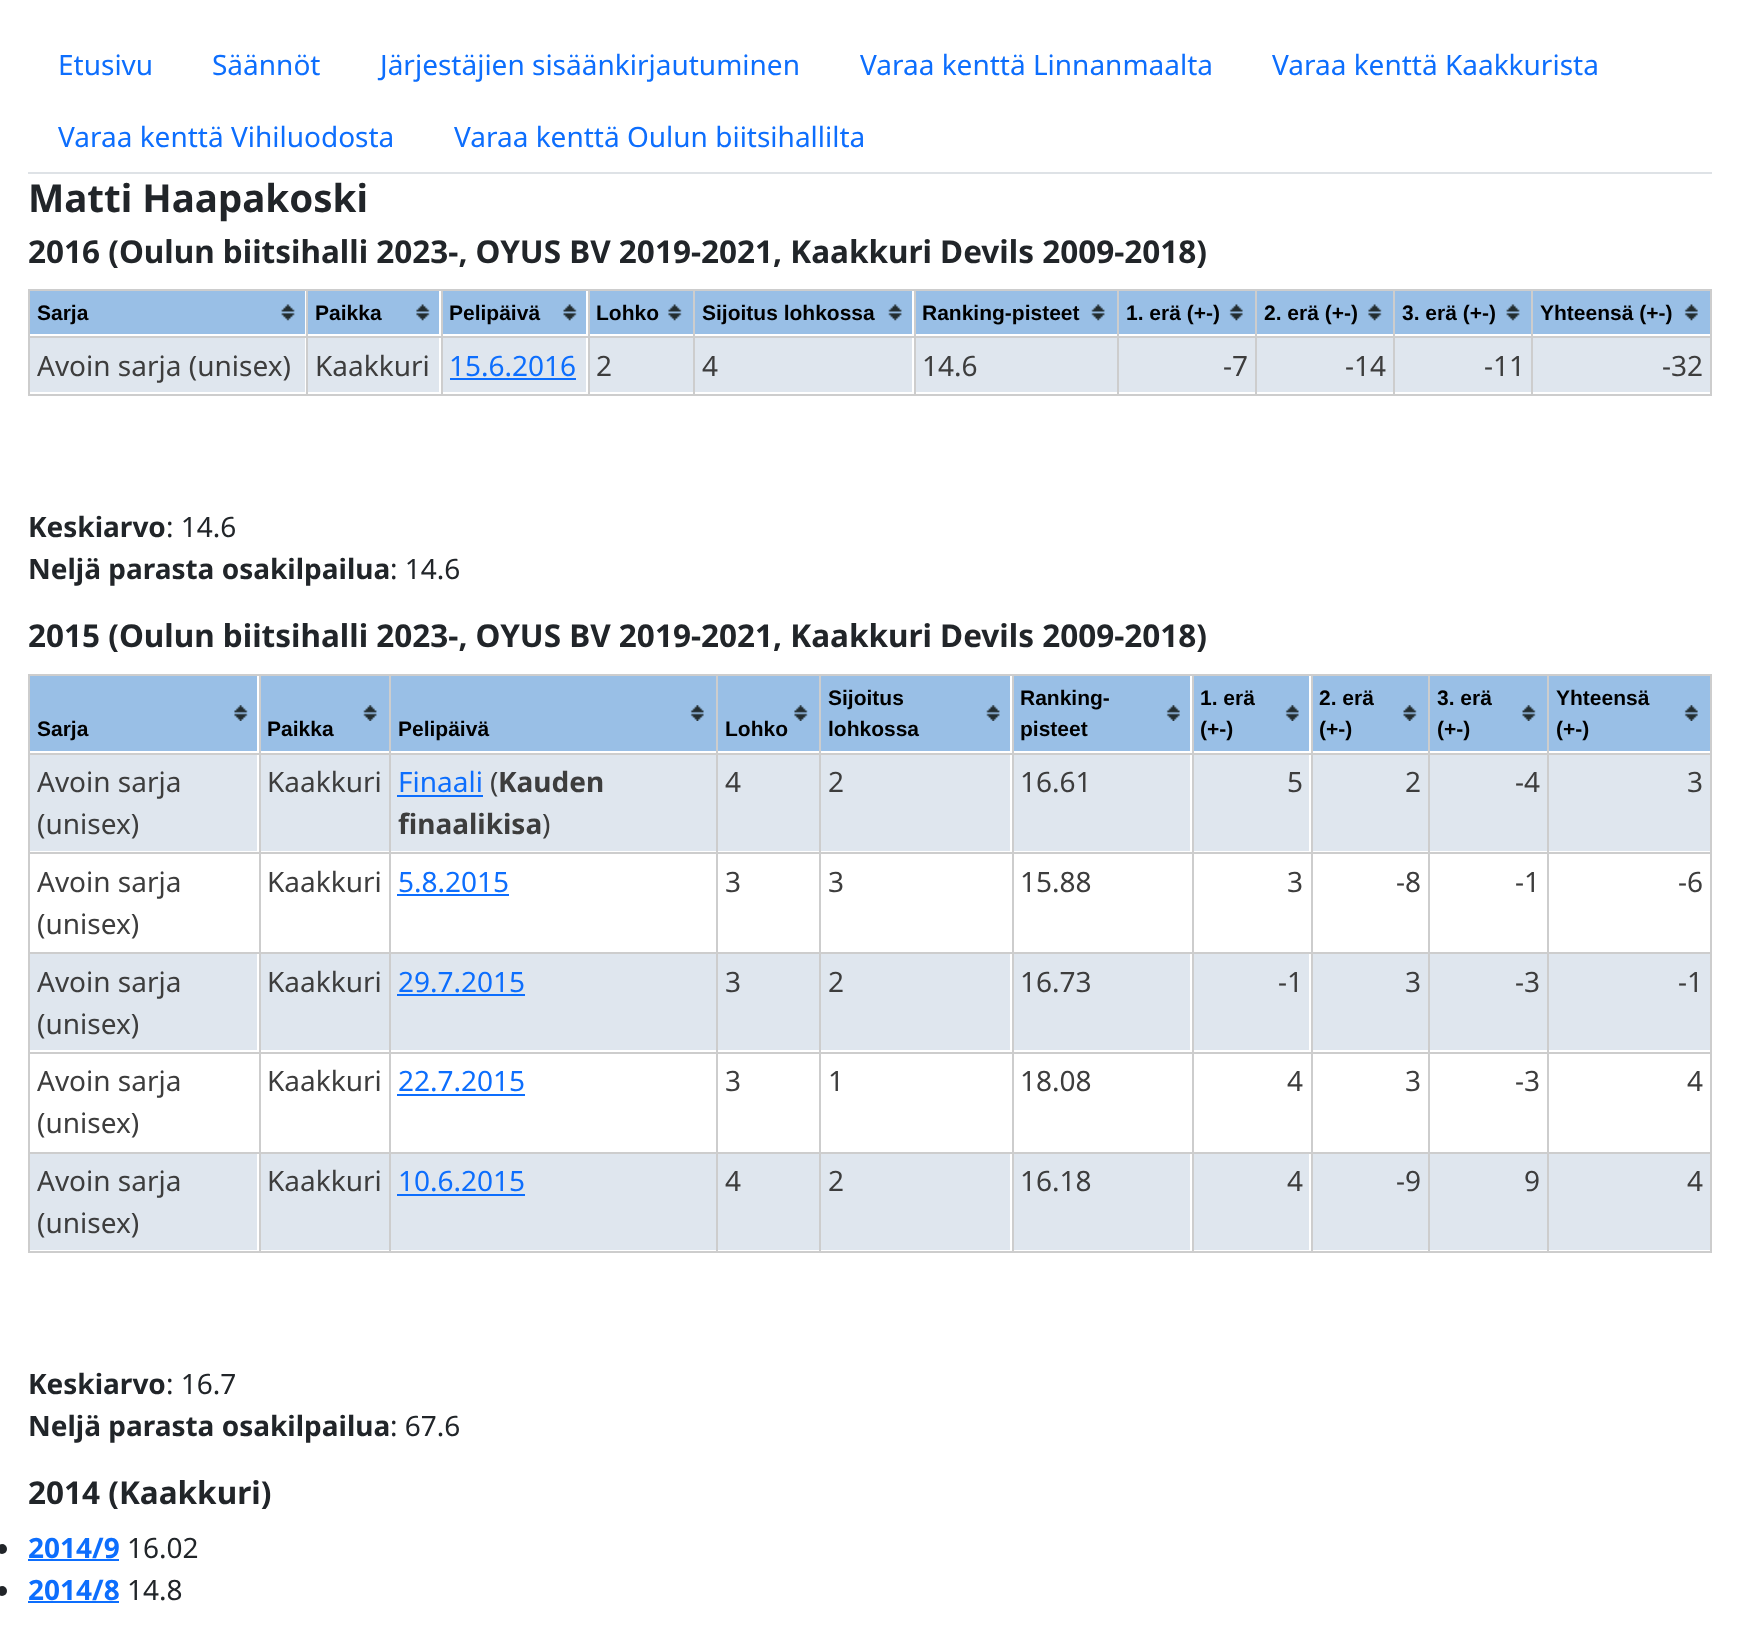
async function draw(canvas) {
  canvas.width = 1738;
  canvas.height = 1625;
  const ctx = canvas.getContext('2d');
  ctx.miterLimit = 4;
  ctx.fontKerning = 'normal';
  function label(s, x, y, font, color) {
    ctx.font = font;
    ctx.fillStyle = color;
    ctx.fillText(s, x, y);
  }
  function rect(x, y, w, h, color) {
    ctx.fillStyle = color;
    ctx.fillRect(x, y, w, h);
  }
  async function image(src, x, y, w, h) {
    const img = new Image();
    img.src = src;
    await img.decode();
    ctx.drawImage(img, x, y, w, h);
  }

  rect(0, 0, 1738, 1625, '#fff');
  rect(28, 172, 1684, 2, '#dee2e6');
  label('Etusivu', 58, 75, '28px Noto Sans', '#0d6efd');
  label('Säännöt', 212, 75, '28px Noto Sans', '#0d6efd');
  label('Järjestäjien sisäänkirjautuminen', 380, 75, '28px Noto Sans', '#0d6efd');
  label('Varaa kenttä Linnanmaalta', 860, 75, '28px Noto Sans', '#0d6efd');
  label('Varaa kenttä Kaakkurista', 1272, 75, '28px Noto Sans', '#0d6efd');
  label('Varaa kenttä Vihiluodosta', 58, 147, '28px Noto Sans', '#0d6efd');
  label('Varaa kenttä Oulun biitsihallilta', 454, 147, '28px Noto Sans', '#0d6efd');
  label('Matti Haapakoski', 28, 212, 'bold 38.5px Noto Sans', '#212529');
  label('2016 (Oulun biitsihalli 2023-, OYUS BV 2019-2021, Kaakkuri Devils 2009-2018)', 28, 263, 'bold 31.5px Noto Sans', '#212529');
  rect(28, 289, 1684, 2, '#cdcdcd');
  rect(28, 289, 2, 107, '#cdcdcd');
  rect(30, 291, 275, 43, '#99bfe6');
  await image('assets/img1.png', 281, 304, 14, 17);
  rect(1710, 289, 2, 107, '#cdcdcd');
  rect(1531, 394, 181, 2, '#cdcdcd');
  rect(1531, 336, 2, 60, '#cdcdcd');
  rect(1531, 336, 181, 2, '#cdcdcd');
  rect(1531, 289, 2, 49, '#cdcdcd');
  rect(1393, 394, 140, 2, '#cdcdcd');
  rect(1393, 336, 2, 60, '#cdcdcd');
  rect(1393, 336, 140, 2, '#cdcdcd');
  rect(1393, 289, 2, 49, '#cdcdcd');
  rect(1255, 394, 140, 2, '#cdcdcd');
  rect(1255, 336, 2, 60, '#cdcdcd');
  rect(1255, 336, 140, 2, '#cdcdcd');
  rect(1255, 289, 2, 49, '#cdcdcd');
  rect(1117, 394, 140, 2, '#cdcdcd');
  rect(1117, 336, 2, 60, '#cdcdcd');
  rect(1117, 336, 140, 2, '#cdcdcd');
  rect(1117, 289, 2, 49, '#cdcdcd');
  rect(914, 394, 204, 2, '#cdcdcd');
  rect(914, 336, 2, 60, '#cdcdcd');
  rect(914, 336, 204, 2, '#cdcdcd');
  rect(914, 289, 2, 49, '#cdcdcd');
  rect(693, 394, 222, 2, '#cdcdcd');
  rect(693, 336, 2, 60, '#cdcdcd');
  rect(693, 336, 222, 2, '#cdcdcd');
  rect(693, 289, 2, 49, '#cdcdcd');
  rect(588, 394, 107, 2, '#cdcdcd');
  rect(588, 336, 2, 60, '#cdcdcd');
  rect(588, 336, 107, 2, '#cdcdcd');
  rect(588, 289, 2, 49, '#cdcdcd');
  rect(441, 394, 149, 2, '#cdcdcd');
  rect(441, 336, 2, 60, '#cdcdcd');
  rect(441, 336, 149, 2, '#cdcdcd');
  rect(441, 289, 2, 49, '#cdcdcd');
  rect(306, 394, 137, 2, '#cdcdcd');
  rect(306, 336, 2, 60, '#cdcdcd');
  rect(306, 336, 137, 2, '#cdcdcd');
  rect(306, 289, 2, 49, '#cdcdcd');
  rect(28, 336, 280, 2, '#cdcdcd');
  label('Sarja', 37, 320, 'bold 21px Liberation Sans', '#000');
  rect(308, 291, 131, 43, '#99bfe6');
  await image('assets/img2.png', 416, 304, 14, 17);
  label('Paikka', 315, 320, 'bold 21px Liberation Sans', '#000');
  rect(443, 291, 143, 43, '#99bfe6');
  await image('assets/img3.png', 563, 304, 14, 17);
  label('Pelipäivä', 449, 320, 'bold 21px Liberation Sans', '#000');
  rect(590, 291, 103, 43, '#99bfe6');
  await image('assets/img2.png', 668, 304, 14, 17);
  label('Lohko', 596, 320, 'bold 21px Liberation Sans', '#000');
  rect(695, 291, 217, 43, '#99bfe6');
  await image('assets/img4.png', 888, 304, 14, 17);
  label('Sijoitus lohkossa', 702, 320, 'bold 21px Liberation Sans', '#000');
  rect(916, 291, 201, 43, '#99bfe6');
  await image('assets/img4.png', 1091, 304, 14, 17);
  label('Ranking-pisteet', 922, 320, 'bold 21px Liberation Sans', '#000');
  rect(1119, 291, 136, 43, '#99bfe6');
  await image('assets/img5.png', 1229, 304, 14, 17);
  label('1. erä (+-)', 1126, 320, 'bold 21px Liberation Sans', '#000');
  rect(1257, 291, 136, 43, '#99bfe6');
  await image('assets/img2.png', 1368, 304, 14, 17);
  label('2. erä (+-)', 1264, 320, 'bold 21px Liberation Sans', '#000');
  rect(1395, 291, 136, 43, '#99bfe6');
  await image('assets/img6.png', 1506, 304, 14, 17);
  label('3. erä (+-)', 1402, 320, 'bold 21px Liberation Sans', '#000');
  rect(1533, 291, 177, 43, '#99bfe6');
  await image('assets/img7.png', 1684, 304, 14, 17);
  label('Yhteensä (+-)', 1540, 320, 'bold 21px Liberation Sans', '#000');
  rect(30, 338, 275, 54, '#dfe6ee');
  rect(28, 394, 280, 2, '#cdcdcd');
  label('Avoin sarja (unisex)', 37, 376, '28px Noto Sans', '#3d3d3d');
  rect(308, 338, 131, 54, '#dfe6ee');
  label('Kaakkuri', 315, 376, '28px Noto Sans', '#3d3d3d');
  rect(443, 338, 143, 54, '#dfe6ee');
  label('15.6.2016', 449, 376, '28px Noto Sans', '#0d6efd');
  rect(450, 378, 126, 2, '#0d6efd');
  rect(590, 338, 103, 54, '#dfe6ee');
  label('2', 596, 376, '28px Noto Sans', '#3d3d3d');
  rect(695, 338, 217, 54, '#dfe6ee');
  label('4', 702, 376, '28px Noto Sans', '#3d3d3d');
  rect(916, 338, 201, 54, '#dfe6ee');
  label('14.6', 922, 376, '28px Noto Sans', '#3d3d3d');
  rect(1119, 338, 136, 54, '#dfe6ee');
  label('-7', 1223, 376, '28px Noto Sans', '#3d3d3d');
  rect(1257, 338, 136, 54, '#dfe6ee');
  label('-14', 1345, 376, '28px Noto Sans', '#3d3d3d');
  rect(1395, 338, 136, 54, '#dfe6ee');
  label('-11', 1484, 376, '28px Noto Sans', '#3d3d3d');
  rect(1533, 338, 177, 54, '#dfe6ee');
  label('-32', 1662, 376, '28px Noto Sans', '#3d3d3d');
  label('Keskiarvo', 28, 537, 'bold 28px Noto Sans', '#212529');
  label(': 14.6', 166, 537, '28px Noto Sans', '#212529');
  label('Neljä parasta osakilpailua', 28, 579, 'bold 28px Noto Sans', '#212529');
  label(': 14.6', 390, 579, '28px Noto Sans', '#212529');
  label('2015 (Oulun biitsihalli 2023-, OYUS BV 2019-2021, Kaakkuri Devils 2009-2018)', 28, 647, 'bold 31.5px Noto Sans', '#212529');
  rect(28, 674, 1684, 2, '#cdcdcd');
  rect(28, 674, 2, 579, '#cdcdcd');
  rect(30, 676, 227, 75, '#99bfe6');
  await image('assets/img8.png', 234, 705, 14, 16);
  rect(1710, 674, 2, 579, '#cdcdcd');
  rect(1547, 1251, 165, 2, '#cdcdcd');
  rect(1547, 1152, 2, 101, '#cdcdcd');
  rect(1547, 1152, 165, 2, '#cdcdcd');
  rect(1547, 1052, 2, 101, '#cdcdcd');
  rect(1547, 1052, 165, 2, '#cdcdcd');
  rect(1547, 952, 2, 102, '#cdcdcd');
  rect(1547, 952, 165, 2, '#cdcdcd');
  rect(1547, 852, 2, 102, '#cdcdcd');
  rect(1547, 852, 165, 2, '#cdcdcd');
  rect(1547, 753, 2, 101, '#cdcdcd');
  rect(1547, 753, 165, 2, '#cdcdcd');
  rect(1547, 674, 2, 80, '#cdcdcd');
  rect(1428, 1251, 121, 2, '#cdcdcd');
  rect(1428, 1152, 2, 101, '#cdcdcd');
  rect(1428, 1152, 121, 2, '#cdcdcd');
  rect(1428, 1052, 2, 101, '#cdcdcd');
  rect(1428, 1052, 121, 2, '#cdcdcd');
  rect(1428, 952, 2, 102, '#cdcdcd');
  rect(1428, 952, 121, 2, '#cdcdcd');
  rect(1428, 852, 2, 102, '#cdcdcd');
  rect(1428, 852, 121, 2, '#cdcdcd');
  rect(1428, 753, 2, 101, '#cdcdcd');
  rect(1428, 753, 121, 2, '#cdcdcd');
  rect(1428, 674, 2, 80, '#cdcdcd');
  rect(1311, 1251, 119, 2, '#cdcdcd');
  rect(1311, 1152, 2, 101, '#cdcdcd');
  rect(1311, 1152, 119, 2, '#cdcdcd');
  rect(1311, 1052, 2, 101, '#cdcdcd');
  rect(1311, 1052, 119, 2, '#cdcdcd');
  rect(1311, 952, 2, 102, '#cdcdcd');
  rect(1311, 952, 119, 2, '#cdcdcd');
  rect(1311, 852, 2, 102, '#cdcdcd');
  rect(1311, 852, 119, 2, '#cdcdcd');
  rect(1311, 753, 2, 101, '#cdcdcd');
  rect(1311, 753, 119, 2, '#cdcdcd');
  rect(1311, 674, 2, 80, '#cdcdcd');
  rect(1192, 1251, 121, 2, '#cdcdcd');
  rect(1192, 1152, 2, 101, '#cdcdcd');
  rect(1192, 1152, 121, 2, '#cdcdcd');
  rect(1192, 1052, 2, 101, '#cdcdcd');
  rect(1192, 1052, 121, 2, '#cdcdcd');
  rect(1192, 952, 2, 102, '#cdcdcd');
  rect(1192, 952, 121, 2, '#cdcdcd');
  rect(1192, 852, 2, 102, '#cdcdcd');
  rect(1192, 852, 121, 2, '#cdcdcd');
  rect(1192, 753, 2, 101, '#cdcdcd');
  rect(1192, 753, 121, 2, '#cdcdcd');
  rect(1192, 674, 2, 80, '#cdcdcd');
  rect(1012, 1251, 182, 2, '#cdcdcd');
  rect(1012, 1152, 2, 101, '#cdcdcd');
  rect(1012, 1152, 182, 2, '#cdcdcd');
  rect(1012, 1052, 2, 101, '#cdcdcd');
  rect(1012, 1052, 182, 2, '#cdcdcd');
  rect(1012, 952, 2, 102, '#cdcdcd');
  rect(1012, 952, 182, 2, '#cdcdcd');
  rect(1012, 852, 2, 102, '#cdcdcd');
  rect(1012, 852, 182, 2, '#cdcdcd');
  rect(1012, 753, 2, 101, '#cdcdcd');
  rect(1012, 753, 182, 2, '#cdcdcd');
  rect(1012, 674, 2, 80, '#cdcdcd');
  rect(819, 1251, 194, 2, '#cdcdcd');
  rect(819, 1152, 2, 101, '#cdcdcd');
  rect(819, 1152, 194, 2, '#cdcdcd');
  rect(819, 1052, 2, 101, '#cdcdcd');
  rect(819, 1052, 194, 2, '#cdcdcd');
  rect(819, 952, 2, 102, '#cdcdcd');
  rect(819, 952, 194, 2, '#cdcdcd');
  rect(819, 852, 2, 102, '#cdcdcd');
  rect(819, 852, 194, 2, '#cdcdcd');
  rect(819, 753, 2, 101, '#cdcdcd');
  rect(819, 753, 194, 2, '#cdcdcd');
  rect(819, 674, 2, 80, '#cdcdcd');
  rect(716, 1251, 105, 2, '#cdcdcd');
  rect(716, 1152, 2, 101, '#cdcdcd');
  rect(716, 1152, 105, 2, '#cdcdcd');
  rect(716, 1052, 2, 101, '#cdcdcd');
  rect(716, 1052, 105, 2, '#cdcdcd');
  rect(716, 952, 2, 102, '#cdcdcd');
  rect(716, 952, 105, 2, '#cdcdcd');
  rect(716, 852, 2, 102, '#cdcdcd');
  rect(716, 852, 105, 2, '#cdcdcd');
  rect(716, 753, 2, 101, '#cdcdcd');
  rect(716, 753, 105, 2, '#cdcdcd');
  rect(716, 674, 2, 80, '#cdcdcd');
  rect(389, 1251, 329, 2, '#cdcdcd');
  rect(389, 1152, 2, 101, '#cdcdcd');
  rect(389, 1152, 329, 2, '#cdcdcd');
  rect(389, 1052, 2, 101, '#cdcdcd');
  rect(389, 1052, 329, 2, '#cdcdcd');
  rect(389, 952, 2, 102, '#cdcdcd');
  rect(389, 952, 329, 2, '#cdcdcd');
  rect(389, 852, 2, 102, '#cdcdcd');
  rect(389, 852, 329, 2, '#cdcdcd');
  rect(389, 753, 2, 101, '#cdcdcd');
  rect(389, 753, 329, 2, '#cdcdcd');
  rect(389, 674, 2, 80, '#cdcdcd');
  rect(259, 1251, 131, 2, '#cdcdcd');
  rect(259, 1152, 2, 101, '#cdcdcd');
  rect(259, 1152, 131, 2, '#cdcdcd');
  rect(259, 1052, 2, 101, '#cdcdcd');
  rect(259, 1052, 131, 2, '#cdcdcd');
  rect(259, 952, 2, 102, '#cdcdcd');
  rect(259, 952, 131, 2, '#cdcdcd');
  rect(259, 852, 2, 102, '#cdcdcd');
  rect(259, 852, 131, 2, '#cdcdcd');
  rect(259, 753, 2, 101, '#cdcdcd');
  rect(259, 753, 131, 2, '#cdcdcd');
  rect(259, 674, 2, 80, '#cdcdcd');
  rect(28, 753, 233, 2, '#cdcdcd');
  label('Sarja', 37, 736, 'bold 21px Liberation Sans', '#000');
  rect(261, 676, 128, 75, '#99bfe6');
  await image('assets/img9.png', 363, 705, 14, 16);
  label('Paikka', 267, 736, 'bold 21px Liberation Sans', '#000');
  rect(391, 676, 325, 75, '#99bfe6');
  await image('assets/img10.png', 690, 705, 14, 16);
  label('Pelipäivä', 398, 736, 'bold 21px Liberation Sans', '#000');
  rect(718, 676, 101, 75, '#99bfe6');
  await image('assets/img8.png', 794, 705, 14, 16);
  label('Lohko', 725, 736, 'bold 21px Liberation Sans', '#000');
  rect(821, 676, 189, 75, '#99bfe6');
  await image('assets/img11.png', 986, 705, 14, 16);
  label('Sijoitus', 828, 705, 'bold 21px Liberation Sans', '#000');
  label('lohkossa', 828, 736, 'bold 21px Liberation Sans', '#000');
  rect(1014, 676, 176, 75, '#99bfe6');
  await image('assets/img12.png', 1166, 705, 14, 16);
  label('Ranking-', 1020, 705, 'bold 21px Liberation Sans', '#000');
  label('pisteet', 1020, 736, 'bold 21px Liberation Sans', '#000');
  rect(1194, 676, 115, 75, '#99bfe6');
  await image('assets/img10.png', 1285, 705, 14, 16);
  label('1. erä', 1200, 705, 'bold 21px Liberation Sans', '#000');
  label('(+-)', 1200, 736, 'bold 21px Liberation Sans', '#000');
  rect(1313, 676, 115, 75, '#99bfe6');
  await image('assets/img13.png', 1403, 705, 14, 16);
  label('2. erä', 1319, 705, 'bold 21px Liberation Sans', '#000');
  label('(+-)', 1319, 736, 'bold 21px Liberation Sans', '#000');
  rect(1430, 676, 117, 75, '#99bfe6');
  await image('assets/img14.png', 1522, 705, 14, 16);
  label('3. erä', 1437, 705, 'bold 21px Liberation Sans', '#000');
  label('(+-)', 1437, 736, 'bold 21px Liberation Sans', '#000');
  rect(1549, 676, 161, 75, '#99bfe6');
  await image('assets/img12.png', 1684, 705, 14, 16);
  label('Yhteensä', 1556, 705, 'bold 21px Liberation Sans', '#000');
  label('(+-)', 1556, 736, 'bold 21px Liberation Sans', '#000');
  rect(30, 755, 227, 96, '#dfe6ee');
  rect(28, 852, 233, 2, '#cdcdcd');
  label('Avoin sarja', 37, 792, '28px Noto Sans', '#3d3d3d');
  label('(unisex)', 37, 834, '28px Noto Sans', '#3d3d3d');
  rect(261, 755, 128, 96, '#dfe6ee');
  label('Kaakkuri', 267, 792, '28px Noto Sans', '#3d3d3d');
  rect(391, 755, 325, 96, '#dfe6ee');
  label('Finaali', 398, 792, '28px Noto Sans', '#0d6efd');
  rect(397, 795, 86, 2, '#0d6efd');
  label('(', 490, 792, '28px Noto Sans', '#3d3d3d');
  label('Kauden', 498, 792, 'bold 28px Noto Sans', '#3d3d3d');
  label('finaalikisa', 398, 834, 'bold 28px Noto Sans', '#3d3d3d');
  label(')', 542, 834, '28px Noto Sans', '#3d3d3d');
  rect(718, 755, 101, 96, '#dfe6ee');
  label('4', 725, 792, '28px Noto Sans', '#3d3d3d');
  rect(821, 755, 189, 96, '#dfe6ee');
  label('2', 828, 792, '28px Noto Sans', '#3d3d3d');
  rect(1014, 755, 176, 96, '#dfe6ee');
  label('16.61', 1020, 792, '28px Noto Sans', '#3d3d3d');
  rect(1194, 755, 115, 96, '#dfe6ee');
  label('5', 1287, 792, '28px Noto Sans', '#3d3d3d');
  rect(1313, 755, 115, 96, '#dfe6ee');
  label('2', 1405, 792, '28px Noto Sans', '#3d3d3d');
  rect(1430, 755, 117, 96, '#dfe6ee');
  label('-4', 1515, 792, '28px Noto Sans', '#3d3d3d');
  rect(1549, 755, 161, 96, '#dfe6ee');
  label('3', 1687, 792, '28px Noto Sans', '#3d3d3d');
  rect(28, 952, 233, 2, '#cdcdcd');
  label('Avoin sarja', 37, 892, '28px Noto Sans', '#3d3d3d');
  label('(unisex)', 37, 934, '28px Noto Sans', '#3d3d3d');
  label('Kaakkuri', 267, 892, '28px Noto Sans', '#3d3d3d');
  label('5.8.2015', 398, 892, '28px Noto Sans', '#0d6efd');
  rect(397, 894, 112, 2, '#0d6efd');
  label('3', 725, 892, '28px Noto Sans', '#3d3d3d');
  label('3', 828, 892, '28px Noto Sans', '#3d3d3d');
  label('15.88', 1020, 892, '28px Noto Sans', '#3d3d3d');
  label('3', 1287, 892, '28px Noto Sans', '#3d3d3d');
  label('-8', 1396, 892, '28px Noto Sans', '#3d3d3d');
  label('-1', 1515, 892, '28px Noto Sans', '#3d3d3d');
  label('-6', 1678, 892, '28px Noto Sans', '#3d3d3d');
  rect(30, 954, 227, 96, '#dfe6ee');
  rect(28, 1052, 233, 2, '#cdcdcd');
  label('Avoin sarja', 37, 992, '28px Noto Sans', '#3d3d3d');
  label('(unisex)', 37, 1034, '28px Noto Sans', '#3d3d3d');
  rect(261, 954, 128, 96, '#dfe6ee');
  label('Kaakkuri', 267, 992, '28px Noto Sans', '#3d3d3d');
  rect(391, 954, 325, 96, '#dfe6ee');
  label('29.7.2015', 398, 992, '28px Noto Sans', '#0d6efd');
  rect(397, 994, 128, 2, '#0d6efd');
  rect(718, 954, 101, 96, '#dfe6ee');
  label('3', 725, 992, '28px Noto Sans', '#3d3d3d');
  rect(821, 954, 189, 96, '#dfe6ee');
  label('2', 828, 992, '28px Noto Sans', '#3d3d3d');
  rect(1014, 954, 176, 96, '#dfe6ee');
  label('16.73', 1020, 992, '28px Noto Sans', '#3d3d3d');
  rect(1194, 954, 115, 96, '#dfe6ee');
  label('-1', 1278, 992, '28px Noto Sans', '#3d3d3d');
  rect(1313, 954, 115, 96, '#dfe6ee');
  label('3', 1405, 992, '28px Noto Sans', '#3d3d3d');
  rect(1430, 954, 117, 96, '#dfe6ee');
  label('-3', 1515, 992, '28px Noto Sans', '#3d3d3d');
  rect(1549, 954, 161, 96, '#dfe6ee');
  label('-1', 1678, 992, '28px Noto Sans', '#3d3d3d');
  rect(28, 1152, 233, 2, '#cdcdcd');
  label('Avoin sarja', 37, 1091, '28px Noto Sans', '#3d3d3d');
  label('(unisex)', 37, 1133, '28px Noto Sans', '#3d3d3d');
  label('Kaakkuri', 267, 1091, '28px Noto Sans', '#3d3d3d');
  label('22.7.2015', 398, 1091, '28px Noto Sans', '#0d6efd');
  rect(397, 1094, 128, 2, '#0d6efd');
  label('3', 725, 1091, '28px Noto Sans', '#3d3d3d');
  label('1', 828, 1091, '28px Noto Sans', '#3d3d3d');
  label('18.08', 1020, 1091, '28px Noto Sans', '#3d3d3d');
  label('4', 1287, 1091, '28px Noto Sans', '#3d3d3d');
  label('3', 1405, 1091, '28px Noto Sans', '#3d3d3d');
  label('-3', 1515, 1091, '28px Noto Sans', '#3d3d3d');
  label('4', 1687, 1091, '28px Noto Sans', '#3d3d3d');
  rect(30, 1154, 227, 96, '#dfe6ee');
  rect(28, 1251, 233, 2, '#cdcdcd');
  label('Avoin sarja', 37, 1191, '28px Noto Sans', '#3d3d3d');
  label('(unisex)', 37, 1233, '28px Noto Sans', '#3d3d3d');
  rect(261, 1154, 128, 96, '#dfe6ee');
  label('Kaakkuri', 267, 1191, '28px Noto Sans', '#3d3d3d');
  rect(391, 1154, 325, 96, '#dfe6ee');
  label('10.6.2015', 398, 1191, '28px Noto Sans', '#0d6efd');
  rect(397, 1194, 128, 2, '#0d6efd');
  rect(718, 1154, 101, 96, '#dfe6ee');
  label('4', 725, 1191, '28px Noto Sans', '#3d3d3d');
  rect(821, 1154, 189, 96, '#dfe6ee');
  label('2', 828, 1191, '28px Noto Sans', '#3d3d3d');
  rect(1014, 1154, 176, 96, '#dfe6ee');
  label('16.18', 1020, 1191, '28px Noto Sans', '#3d3d3d');
  rect(1194, 1154, 115, 96, '#dfe6ee');
  label('4', 1287, 1191, '28px Noto Sans', '#3d3d3d');
  rect(1313, 1154, 115, 96, '#dfe6ee');
  label('-9', 1396, 1191, '28px Noto Sans', '#3d3d3d');
  rect(1430, 1154, 117, 96, '#dfe6ee');
  label('9', 1524, 1191, '28px Noto Sans', '#3d3d3d');
  rect(1549, 1154, 161, 96, '#dfe6ee');
  label('4', 1687, 1191, '28px Noto Sans', '#3d3d3d');
  label('Keskiarvo', 28, 1394, 'bold 28px Noto Sans', '#212529');
  label(': 16.7', 166, 1394, '28px Noto Sans', '#212529');
  label('Neljä parasta osakilpailua', 28, 1436, 'bold 28px Noto Sans', '#212529');
  label(': 67.6', 390, 1436, '28px Noto Sans', '#212529');
  label('2014 (Kaakkuri)', 28, 1504, 'bold 31.5px Noto Sans', '#212529');
  ctx.beginPath();
  ctx.arc(2, 1549, 5, 0, 2 * Math.PI);
  ctx.fill();
  label('2014/9', 28, 1558, 'bold 28px Noto Sans', '#0d6efd');
  rect(28, 1559, 91, 2, '#0d6efd');
  label('16.02', 127, 1558, '28px Noto Sans', '#212529');
  ctx.beginPath();
  ctx.arc(2, 1591, 5, 0, 2 * Math.PI);
  ctx.fill();
  label('2014/8', 28, 1600, 'bold 28px Noto Sans', '#0d6efd');
  rect(28, 1601, 91, 2, '#0d6efd');
  label('14.8', 127, 1600, '28px Noto Sans', '#212529');
}

draw(document.querySelector('canvas'));
